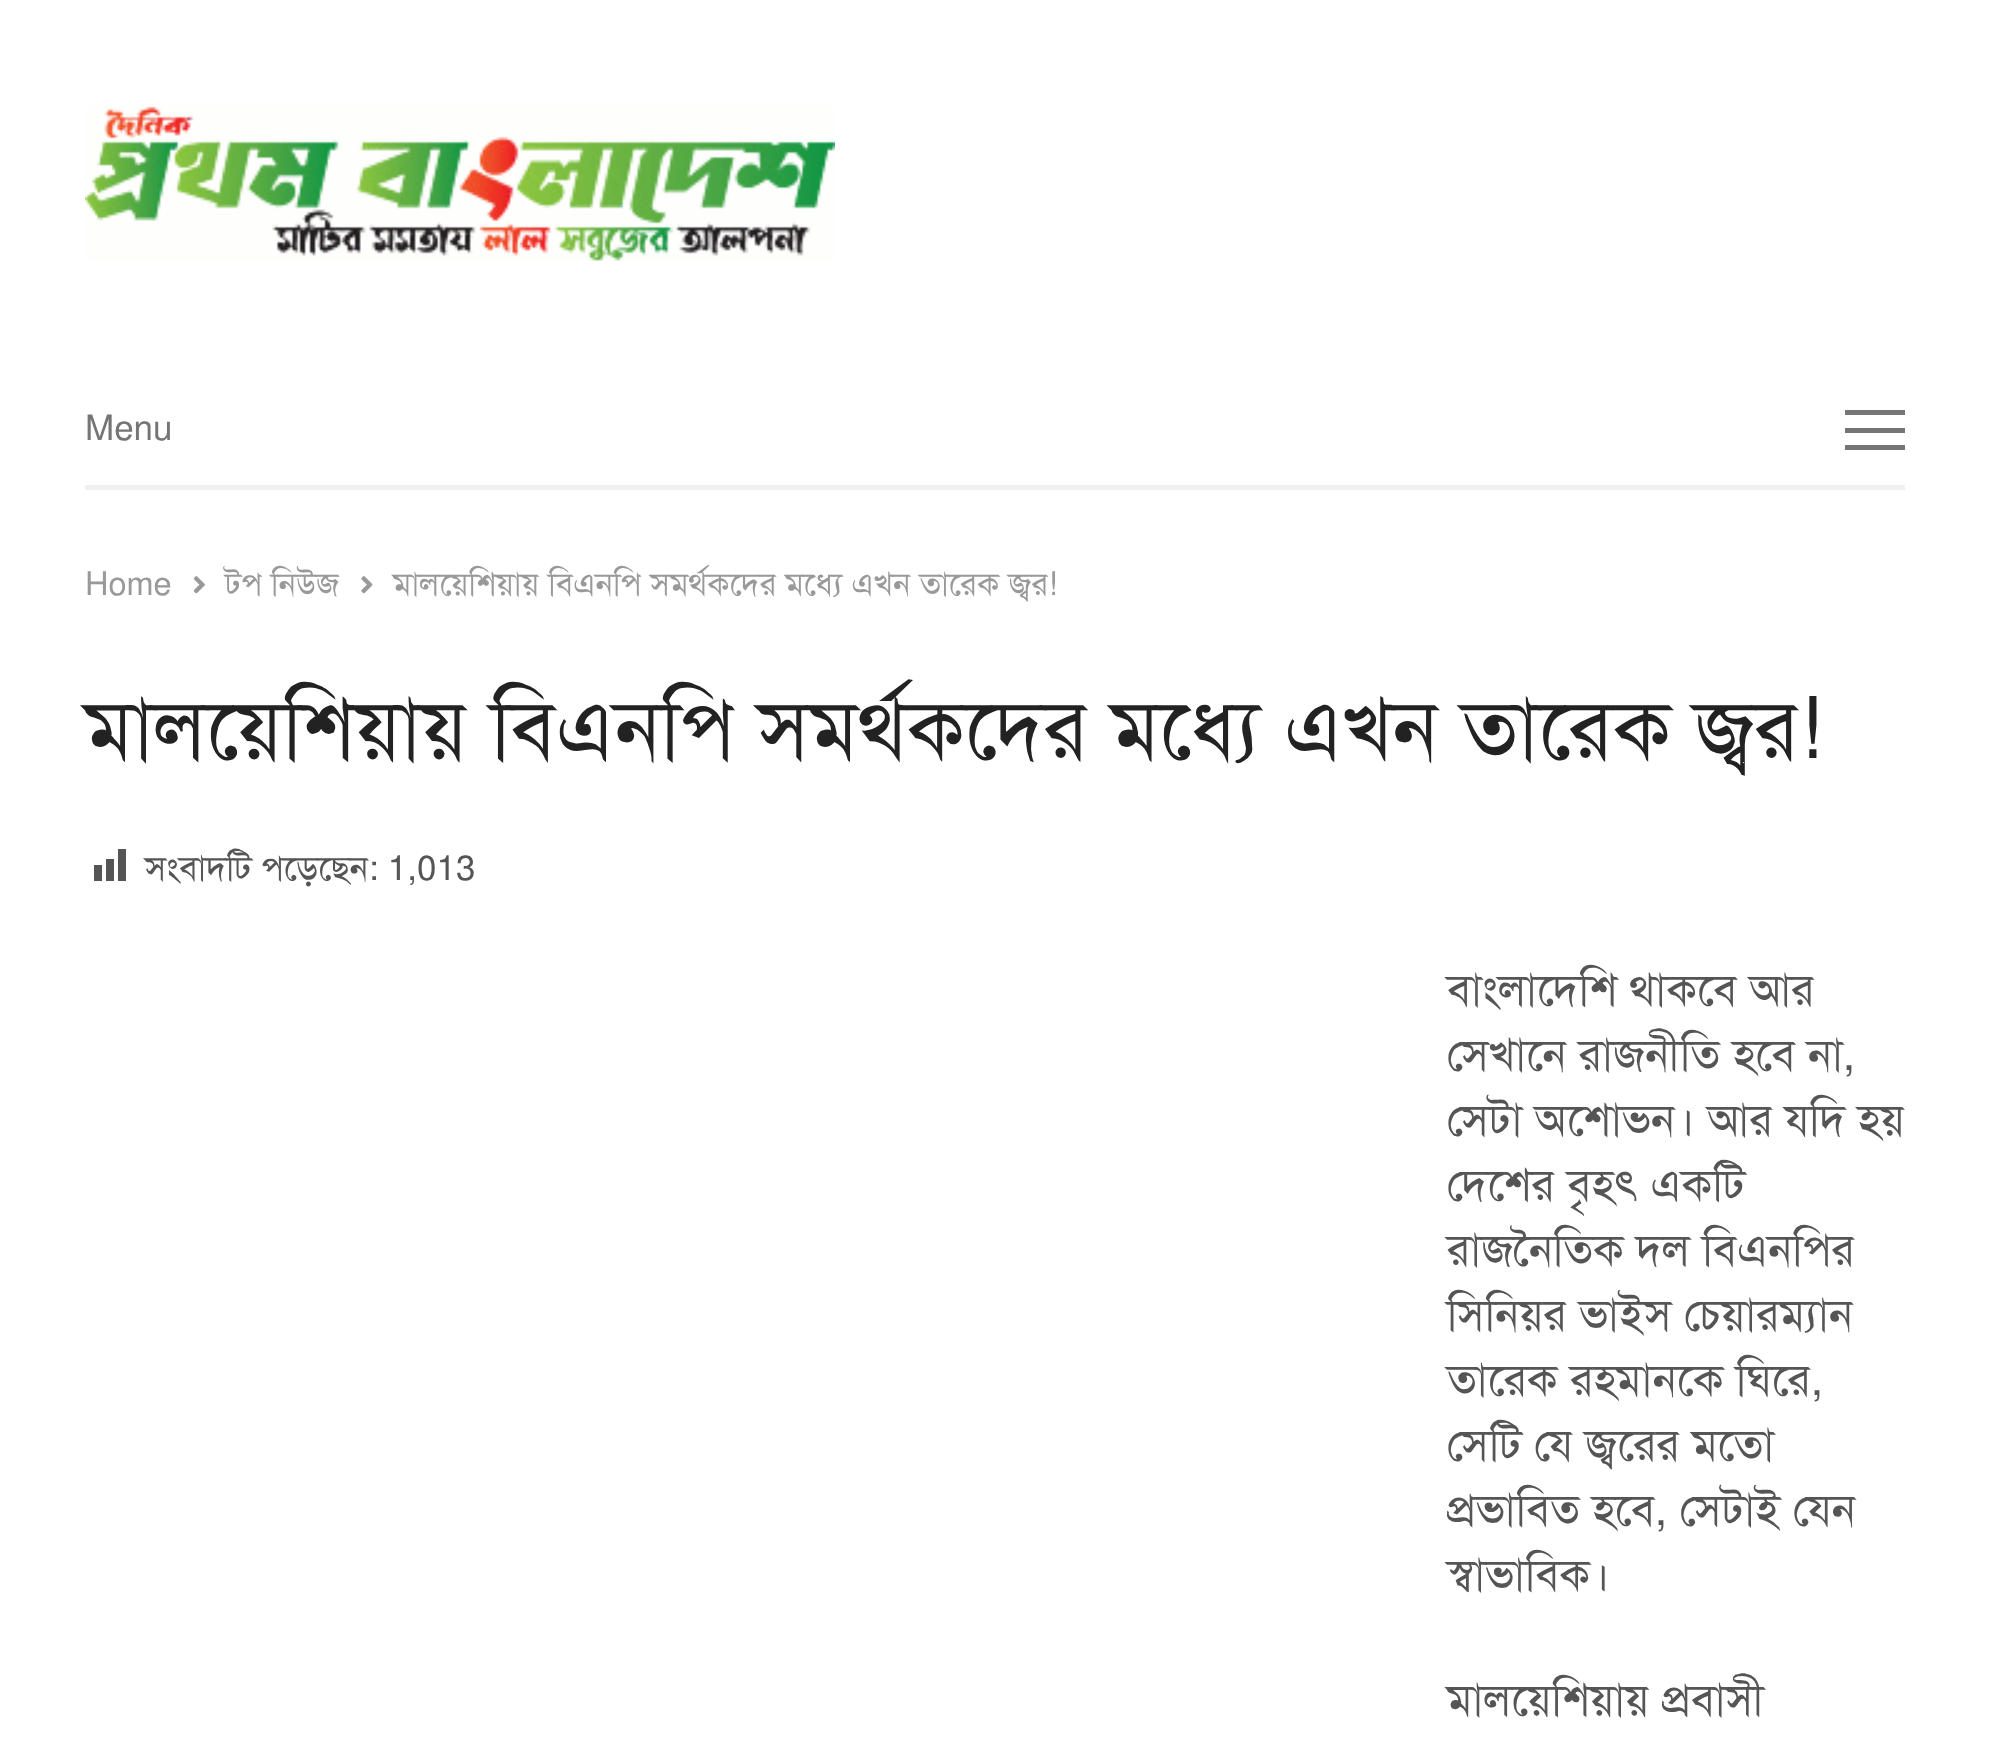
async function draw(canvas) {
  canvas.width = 1989;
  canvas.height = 1752;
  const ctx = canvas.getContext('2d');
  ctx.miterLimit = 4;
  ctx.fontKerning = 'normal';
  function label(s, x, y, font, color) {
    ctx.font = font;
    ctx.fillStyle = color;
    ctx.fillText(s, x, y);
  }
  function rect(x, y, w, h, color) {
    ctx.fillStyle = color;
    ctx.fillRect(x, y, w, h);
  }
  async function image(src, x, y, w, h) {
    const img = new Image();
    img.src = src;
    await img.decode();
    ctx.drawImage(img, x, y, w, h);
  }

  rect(0, 0, 1989, 1752, '#fff');
  await image('assets/img1.png', 85, 106, 750, 155);
  rect(85, 485, 1820, 5, '#f0f0f0');
  label('Menu', 85, 440, '35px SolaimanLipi', '#757575');
  rect(1845, 410, 60, 5, '#757575');
  rect(1845, 428, 60, 5, '#757575');
  rect(1845, 445, 60, 5, '#757575');
  label('Home', 85, 595, '32.5px SolaimanLipi', '#999');
  await image('assets/img2.png', 193, 576, 12, 18);
  label('টপ নিউজ', 225, 595, '32.5px SolaimanLipi', '#999');
  await image('assets/img3.png', 361, 576, 12, 18);
  label('মালয়েশিয়ায় বিএনপি সমর্থকদের মধ্যে এখন তারেক জ্বর!', 393, 595, '32.5px SolaimanLipi', '#999');
  label('মালয়েশিয়ায় বিএনপি সমর্থকদের মধ্যে এখন তারেক জ্বর!', 85, 758, '85px SolaimanLipi', '#222');
  await image('assets/img4.png', 94, 849, 32, 32);
  label('সংবাদটি পড়েছেন: 1,013', 145, 880, '35px SolaimanLipi', '#555');
  label('বাংলাদেশি থাকবে আর', 1447, 1005, '45px SolaimanLipi', '#555');
  label('সেখানে রাজনীতি হবে না,', 1447, 1070, '45px SolaimanLipi', '#555');
  label('সেটা অশোভন। আর যদি হয়', 1447, 1135, '45px SolaimanLipi', '#555');
  label('দেশের বৃহৎ একটি', 1447, 1200, '45px SolaimanLipi', '#555');
  label('রাজনৈতিক দল বিএনপির', 1447, 1265, '45px SolaimanLipi', '#555');
  label('সিনিয়র ভাইস চেয়ারম্যান', 1447, 1330, '45px SolaimanLipi', '#555');
  label('তারেক রহমানকে ঘিরে,', 1447, 1395, '45px SolaimanLipi', '#555');
  label('সেটি যে জ্বরের মতো', 1447, 1460, '45px SolaimanLipi', '#555');
  label('প্রভাবিত হবে, সেটাই যেন', 1447, 1525, '45px SolaimanLipi', '#555');
  label('স্বাভাবিক।', 1447, 1590, '45px SolaimanLipi', '#555');
  label('মালয়েশিয়ায় প্রবাসী', 1447, 1715, '45px SolaimanLipi', '#555');
}

draw(document.querySelector('canvas'));
